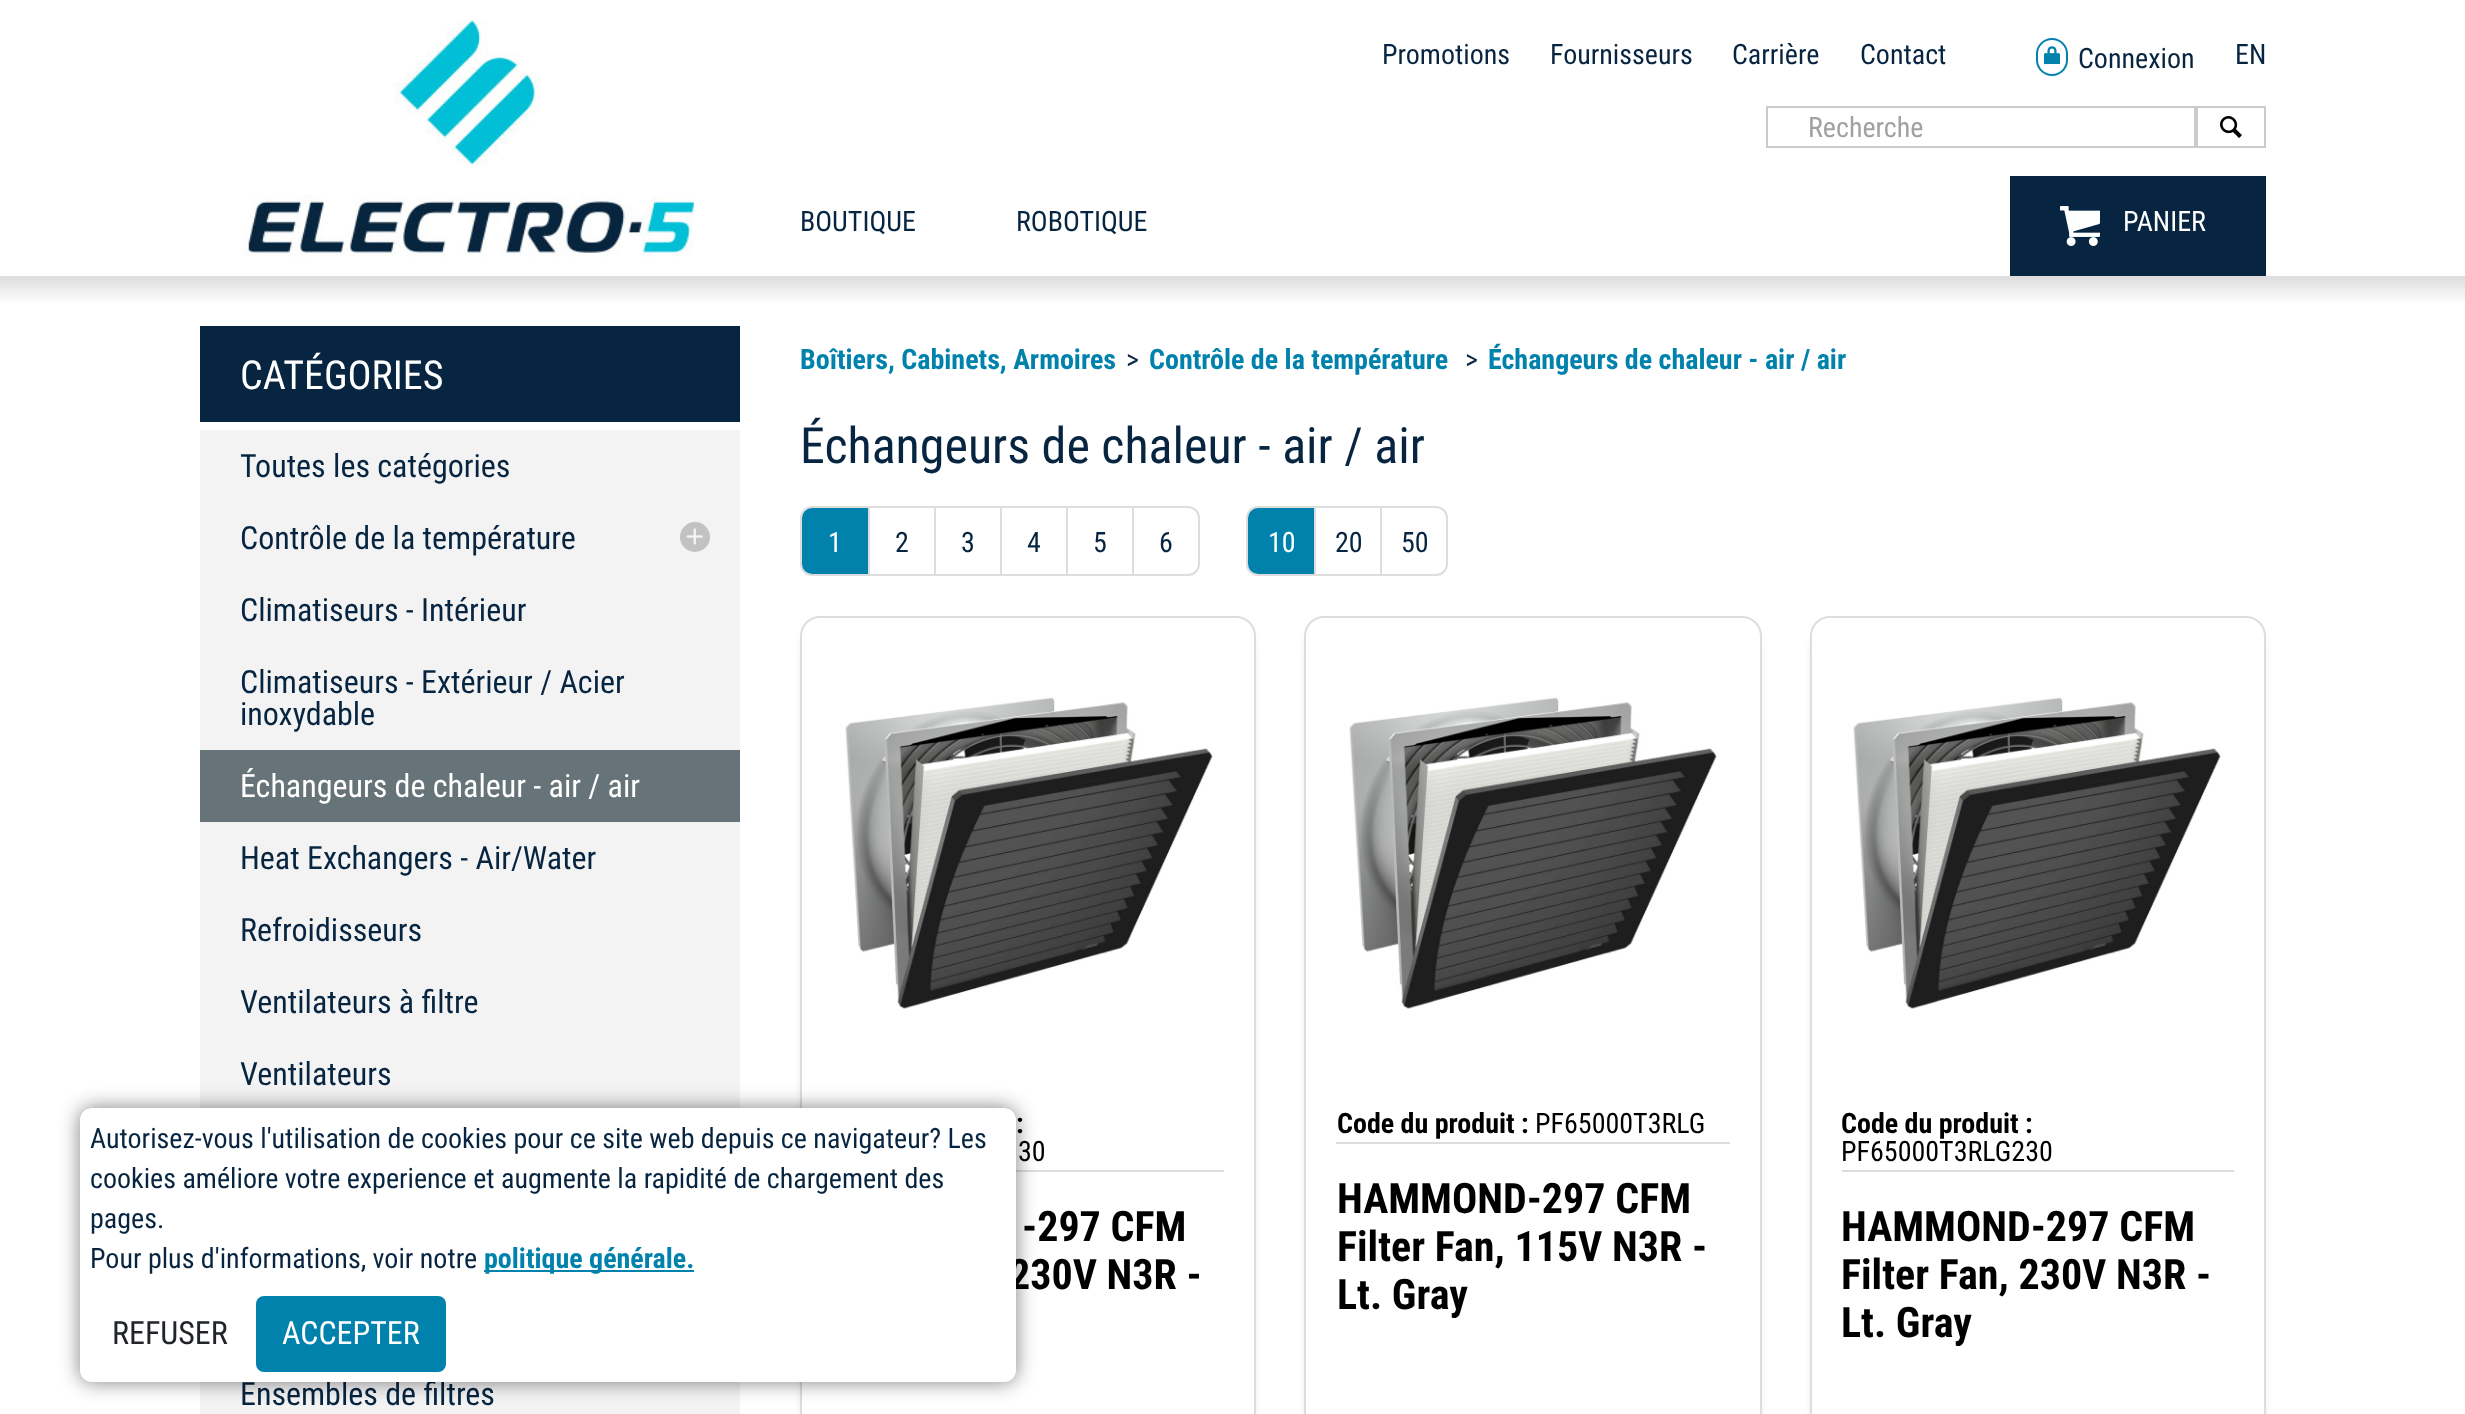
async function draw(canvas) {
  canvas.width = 2465;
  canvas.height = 1414;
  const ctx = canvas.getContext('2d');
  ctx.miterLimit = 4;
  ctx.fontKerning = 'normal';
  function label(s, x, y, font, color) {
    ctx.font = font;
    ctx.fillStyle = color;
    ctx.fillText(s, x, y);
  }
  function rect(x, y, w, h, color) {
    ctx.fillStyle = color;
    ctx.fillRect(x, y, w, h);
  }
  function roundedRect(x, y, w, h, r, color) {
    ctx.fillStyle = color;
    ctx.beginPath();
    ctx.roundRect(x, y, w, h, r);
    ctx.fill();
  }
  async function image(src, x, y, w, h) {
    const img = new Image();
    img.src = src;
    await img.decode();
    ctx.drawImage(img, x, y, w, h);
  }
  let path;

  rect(0, 0, 2465, 1414, '#fff');
  await image('assets/img1.png', 243, 20, 451, 237);
  label('Promotions', 1382, 64, '28px Roboto Condensed', '#072541');
  label('Fournisseurs', 1550, 64, '28px Roboto Condensed', '#072541');
  label('Carrière', 1732, 64, '28px Roboto Condensed', '#072541');
  label('Contact', 1860, 64, '28px Roboto Condensed', '#072541');
  ctx.beginPath();
  ctx.roundRect(2037, 39, 30, 36, 15);
  ctx.strokeStyle = '#0082ad';
  ctx.lineWidth = 2;
  ctx.stroke();
  await image('assets/img2.png', 2044, 46, 16, 18);
  label('Connexion', 2078, 68, '28px Roboto Condensed', '#072541');
  label('EN', 2235, 64, '28px Roboto Condensed', '#072541');
  ctx.strokeStyle = '#cbcbcb';
  ctx.strokeRect(1767, 107, 428, 40);
  label('Recherche', 1808, 137, '28px Roboto Condensed', '#a2a1a1');
  await image('assets/img3.png', 2220, 116, 22, 22);
  ctx.strokeRect(2197, 107, 68, 40);
  label('BOUTIQUE', 800, 231, '28px Roboto Condensed', '#072541');
  label('ROBOTIQUE', 1016, 231, '28px Roboto Condensed', '#072541');
  rect(2010, 176, 256, 100, '#072541');
  await image('assets/img4.png', 2060, 206, 40, 40);
  label('PANIER', 2123, 231, '28px Roboto Condensed', '#fff');
  await image('assets/img5.png', 0, 276, 2465, 25);
  rect(200, 326, 540, 96, '#072541');
  label('CATÉGORIES', 240, 389, '40px Roboto Condensed', '#fff');
  rect(200, 430, 540, 984, '#f3f3f3');
  label('Toutes les catégories', 240, 477, '32px Roboto Condensed', '#072541');
  label('Contrôle de la température', 240, 549, '32px Roboto Condensed', '#072541');
  ctx.fillStyle = '#c2c2c2';
  ctx.beginPath();
  ctx.arc(695, 537, 15, 0, 2 * Math.PI);
  ctx.fill();
  await image('assets/img6.png', 686, 528, 17, 17);
  label('Climatiseurs - Intérieur', 240, 621, '32px Roboto Condensed', '#072541');
  label('Climatiseurs - Extérieur / Acier', 240, 693, '32px Roboto Condensed', '#072541');
  label('inoxydable', 240, 725, '32px Roboto Condensed', '#072541');
  rect(200, 750, 540, 72, '#667479');
  label('Échangeurs de chaleur - air / air', 240, 797, '32px Roboto Condensed', '#fff');
  label('Heat Exchangers - Air/Water', 240, 869, '32px Roboto Condensed', '#072541');
  label('Refroidisseurs', 240, 941, '32px Roboto Condensed', '#072541');
  label('Ventilateurs à filtre', 240, 1013, '32px Roboto Condensed', '#072541');
  label('Ventilateurs', 240, 1085, '32px Roboto Condensed', '#072541');
  label('Ensembles de filtres', 240, 1405, '32px Roboto Condensed', '#072541');
  label('Boîtiers, Cabinets, Armoires', 800, 369, 'bold 28px Roboto Condensed', '#0082ad');
  label('>', 1126, 369, '28px Roboto Condensed', '#072541');
  label('Contrôle de la température', 1149, 369, 'bold 28px Roboto Condensed', '#0082ad');
  label('>', 1465, 369, '28px Roboto Condensed', '#072541');
  label('Échangeurs de chaleur - air / air', 1488, 369, 'bold 28px Roboto Condensed', '#0082ad');
  label('Échangeurs de chaleur - air / air', 800, 463, '50px Roboto Condensed', '#072541');
  ctx.beginPath();
  ctx.roundRect(801, 507, 398, 68, 11);
  ctx.strokeStyle = '#ddd';
  ctx.stroke();
  ctx.fillStyle = '#0082ad';
  ctx.beginPath();
  ctx.roundRect(802, 508, 66, 66, [10, 0, 0, 10]);
  ctx.fill();
  label('1', 828, 552, '28px Roboto Condensed', '#fff');
  rect(868, 508, 2, 66, '#ddd');
  label('2', 895, 552, '28px Roboto Condensed', '#072541');
  rect(934, 508, 2, 66, '#ddd');
  label('3', 961, 552, '28px Roboto Condensed', '#072541');
  rect(1000, 508, 2, 66, '#ddd');
  label('4', 1027, 552, '28px Roboto Condensed', '#072541');
  rect(1066, 508, 2, 66, '#ddd');
  label('5', 1093, 552, '28px Roboto Condensed', '#072541');
  rect(1132, 508, 2, 66, '#ddd');
  label('6', 1159, 552, '28px Roboto Condensed', '#072541');
  ctx.beginPath();
  ctx.roundRect(1247, 507, 200, 68, 11);
  ctx.stroke();
  ctx.fillStyle = '#0082ad';
  ctx.beginPath();
  ctx.roundRect(1248, 508, 66, 66, [10, 0, 0, 10]);
  ctx.fill();
  label('10', 1268, 552, '28px Roboto Condensed', '#fff');
  rect(1314, 508, 2, 66, '#ddd');
  label('20', 1335, 552, '28px Roboto Condensed', '#072541');
  rect(1380, 508, 2, 66, '#ddd');
  label('50', 1401, 552, '28px Roboto Condensed', '#072541');
  ctx.save();
  path = new Path2D('M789 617H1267V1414H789ZM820 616H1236C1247 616 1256 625 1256 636V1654C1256 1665 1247 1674 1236 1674H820C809 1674 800 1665 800 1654V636C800 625 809 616 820 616Z');
  ctx.clip(path, 'evenodd');
  ctx.fillStyle = '#777';
  ctx.filter = 'blur(6px)';
  ctx.beginPath();
  ctx.roundRect(808, 636, 440, 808, 12);
  ctx.fill();
  ctx.filter = 'none';
  ctx.restore();
  ctx.beginPath();
  ctx.roundRect(801, 617, 454, 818, 19);
  ctx.stroke();
  await image('assets/img7.png', 845, 697, 368, 312);
  rect(1016, 1170, 208, 2, '#ddd');
  label(':', 1016, 1133, 'bold 28px Roboto Condensed', '#000');
  label('30', 1018, 1161, '28px Roboto Condensed', '#000');
  label('-297 CFM', 1022, 1241, 'bold 42px Roboto Condensed', '#000');
  label('230V N3R -', 1009, 1289, 'bold 42px Roboto Condensed', '#000');
  ctx.save();
  path = new Path2D('M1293 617H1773V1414H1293ZM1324 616H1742C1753 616 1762 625 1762 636V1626C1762 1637 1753 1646 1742 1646H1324C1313 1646 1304 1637 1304 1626V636C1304 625 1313 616 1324 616Z');
  ctx.clip(path, 'evenodd');
  ctx.fillStyle = '#777';
  ctx.filter = 'blur(6px)';
  ctx.beginPath();
  ctx.roundRect(1312, 636, 442, 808, 12);
  ctx.fill();
  ctx.filter = 'none';
  ctx.restore();
  ctx.beginPath();
  ctx.roundRect(1305, 617, 456, 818, 19);
  ctx.stroke();
  await image('assets/img7.png', 1349, 697, 368, 312);
  rect(1336, 1142, 394, 2, '#ddd');
  label('Code du produit :', 1337, 1133, 'bold 28px Roboto Condensed', '#000');
  label('PF65000T3RLG', 1535, 1133, '28px Roboto Condensed', '#000');
  label('HAMMOND-297 CFM', 1337, 1213, 'bold 42px Roboto Condensed', '#000');
  label('Filter Fan, 115V N3R -', 1337, 1261, 'bold 42px Roboto Condensed', '#000');
  label('Lt. Gray', 1337, 1309, 'bold 42px Roboto Condensed', '#000');
  ctx.save();
  path = new Path2D('M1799 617H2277V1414H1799ZM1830 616H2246C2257 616 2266 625 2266 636V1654C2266 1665 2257 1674 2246 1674H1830C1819 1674 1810 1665 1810 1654V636C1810 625 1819 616 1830 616Z');
  ctx.clip(path, 'evenodd');
  ctx.fillStyle = '#777';
  ctx.filter = 'blur(6px)';
  ctx.beginPath();
  ctx.roundRect(1818, 636, 440, 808, 12);
  ctx.fill();
  ctx.filter = 'none';
  ctx.restore();
  ctx.beginPath();
  ctx.roundRect(1811, 617, 454, 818, 19);
  ctx.stroke();
  await image('assets/img7.png', 1853, 697, 368, 312);
  rect(1842, 1170, 392, 2, '#ddd');
  label('Code du produit :', 1841, 1133, 'bold 28px Roboto Condensed', '#000');
  label('PF65000T3RLG230', 1841, 1161, '28px Roboto Condensed', '#000');
  label('HAMMOND-297 CFM', 1841, 1241, 'bold 42px Roboto Condensed', '#000');
  label('Filter Fan, 230V N3R -', 1841, 1289, 'bold 42px Roboto Condensed', '#000');
  label('Lt. Gray', 1841, 1337, 'bold 42px Roboto Condensed', '#000');
  ctx.fillStyle = '#00000080';
  ctx.filter = 'blur(10px)';
  ctx.beginPath();
  ctx.roundRect(80, 1108, 936, 274, 12);
  ctx.fill();
  ctx.filter = 'none';
  roundedRect(80, 1108, 936, 274, 12, '#fff');
  label('Autorisez-vous l\'utilisation de cookies pour ce site web depuis ce navigateur? Les', 90, 1148, '28px Roboto Condensed', '#072541');
  label('cookies améliore votre experience et augmente la rapidité de chargement des', 90, 1188, '28px Roboto Condensed', '#072541');
  label('pages.', 90, 1228, '28px Roboto Condensed', '#072541');
  label('Pour plus d\'informations, voir notre', 90, 1268, '28px Roboto Condensed', '#072541');
  rect(484, 1270, 210, 2, '#0082ad');
  label('politique générale.', 484, 1268, 'bold 28px Roboto Condensed', '#0082ad');
  label('REFUSER', 112, 1344, '32px Roboto Condensed', '#212529');
  roundedRect(256, 1296, 190, 76, 8, '#0082ad');
  label('ACCEPTER', 282, 1344, '32px Roboto Condensed', '#fff');
}

draw(document.querySelector('canvas'));
